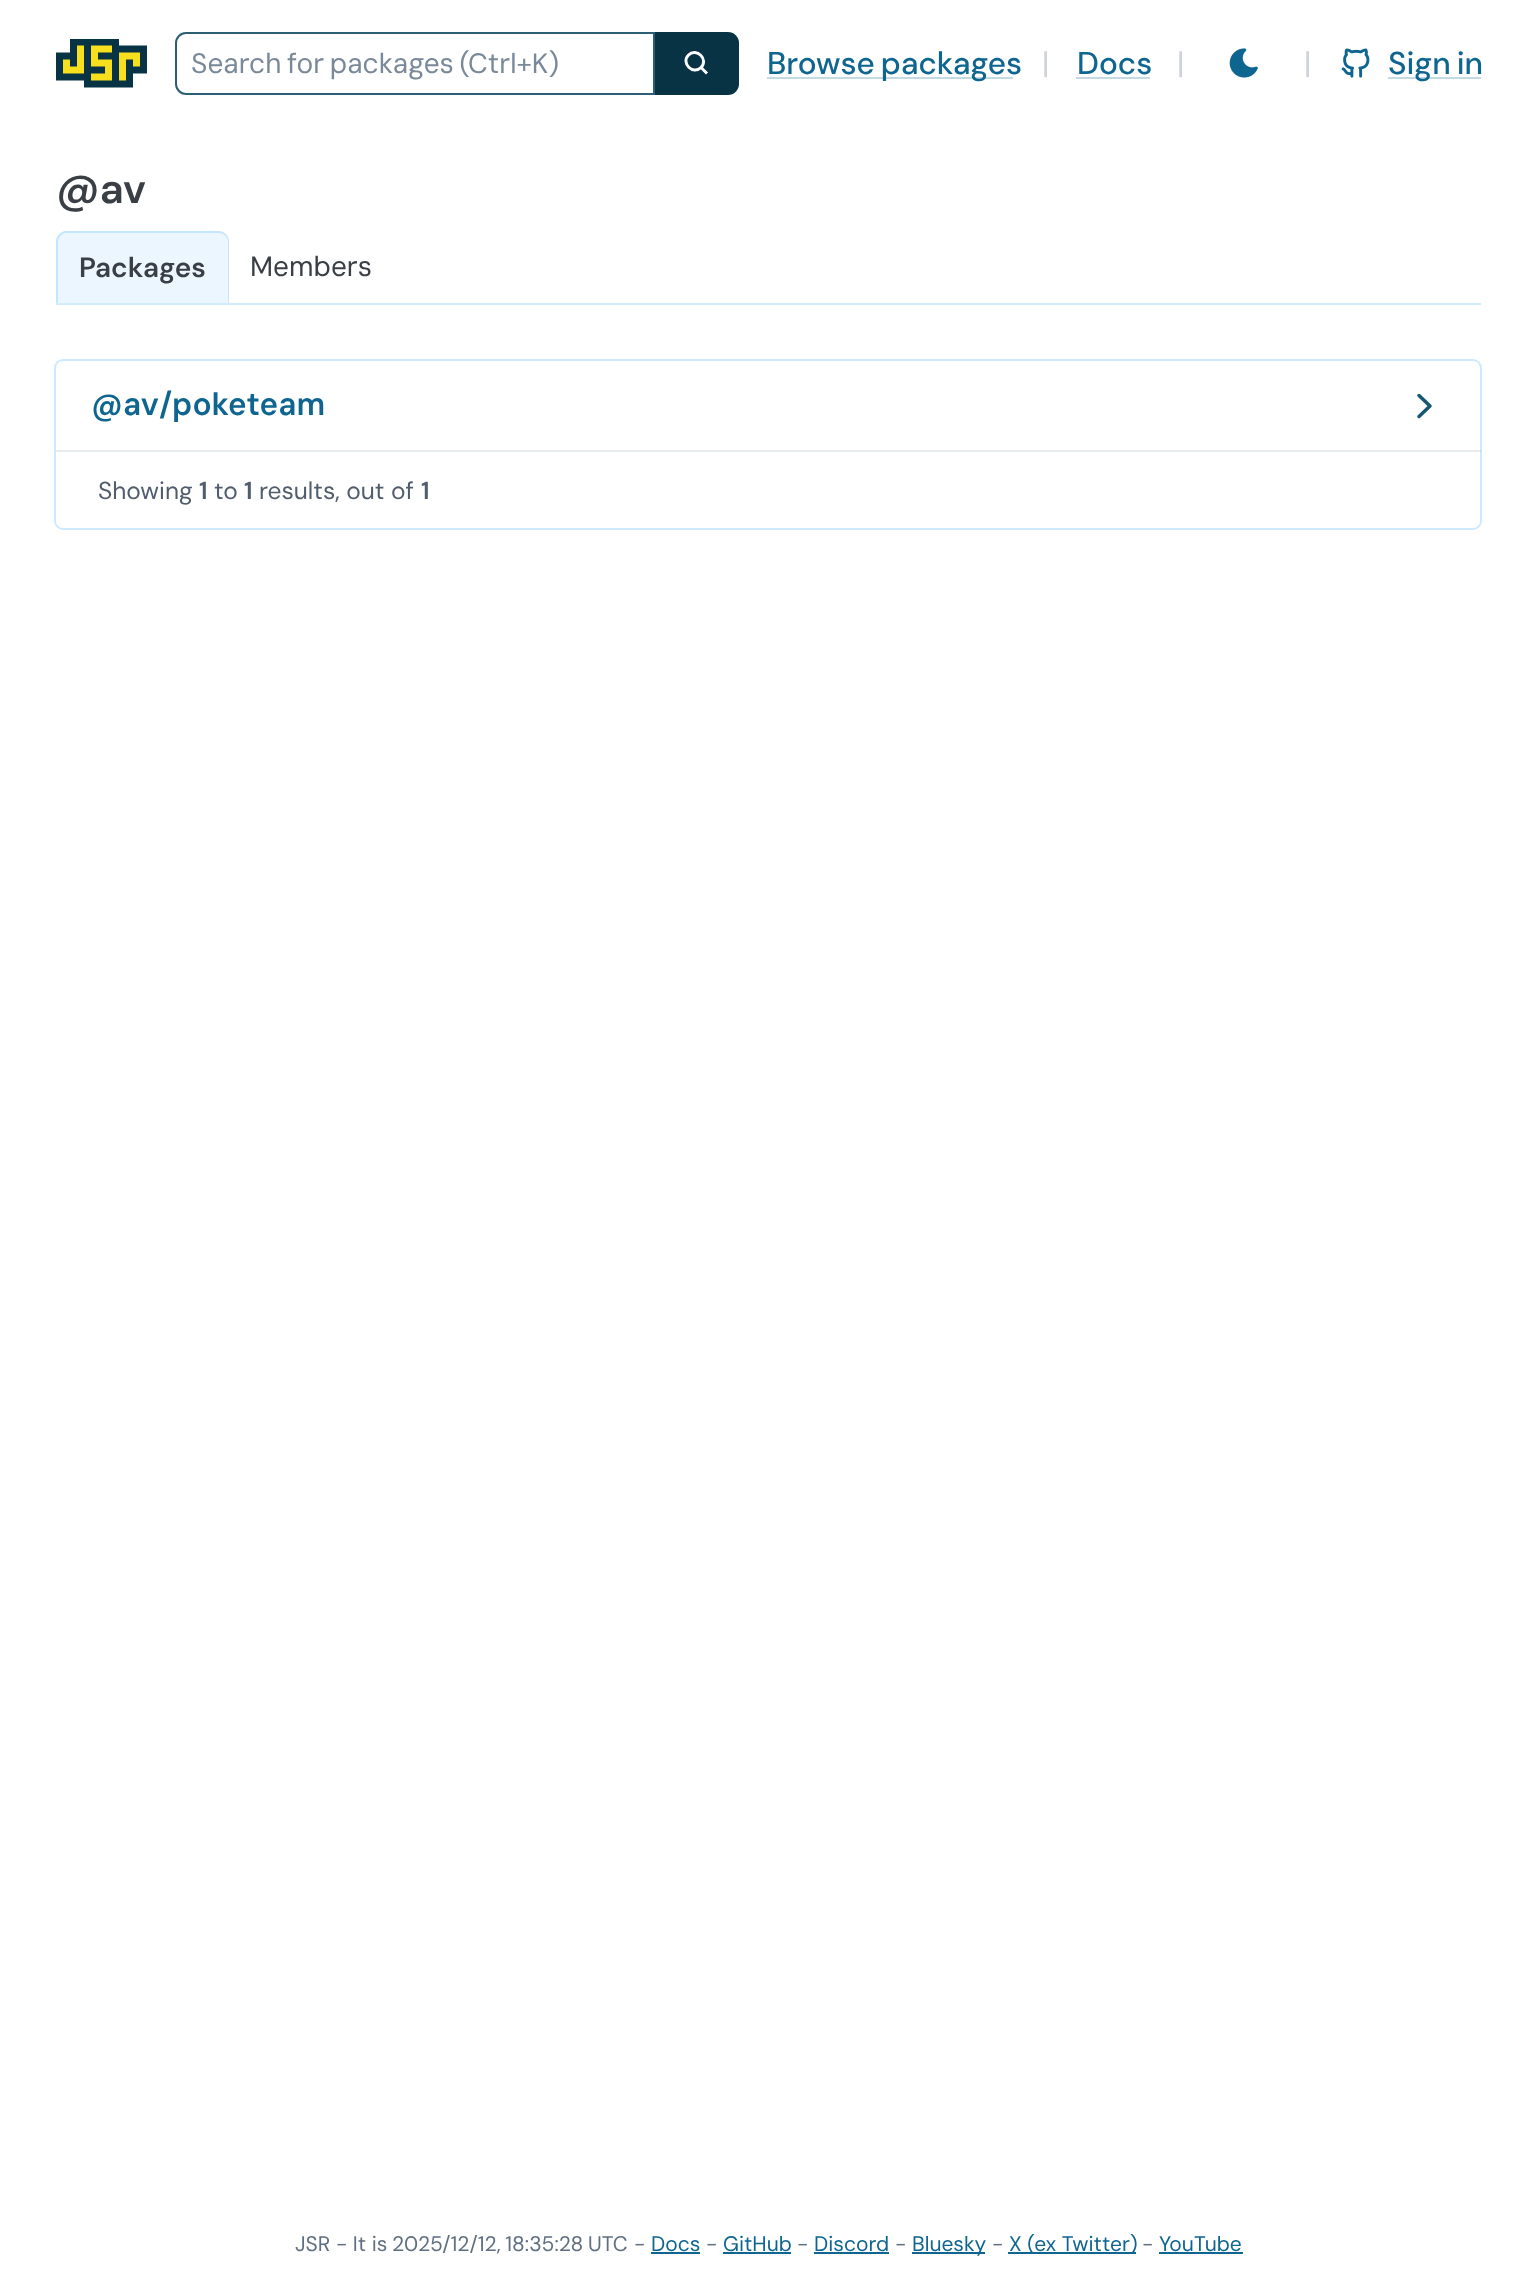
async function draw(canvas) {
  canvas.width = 1535;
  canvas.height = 2285;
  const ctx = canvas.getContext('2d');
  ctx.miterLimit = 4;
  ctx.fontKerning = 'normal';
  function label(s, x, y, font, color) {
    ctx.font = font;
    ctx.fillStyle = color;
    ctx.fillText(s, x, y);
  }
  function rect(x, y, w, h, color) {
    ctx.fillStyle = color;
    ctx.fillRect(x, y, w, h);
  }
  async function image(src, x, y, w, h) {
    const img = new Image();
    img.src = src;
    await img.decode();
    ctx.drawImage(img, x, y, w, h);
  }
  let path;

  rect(0, 0, 1535, 2285, '#fff');
  await image('assets/img1.png', 56, 39, 91, 49);
  ctx.beginPath();
  ctx.roundRect(176, 33, 478, 61, [10, 0, 0, 10]);
  ctx.strokeStyle = '#2d5f74';
  ctx.lineWidth = 2;
  ctx.stroke();
  ctx.wordSpacing = '-2px';
  label('Search for packages (Ctrl+K)', 191, 73, '28px "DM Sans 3"', '#7a8999');
  ctx.fillStyle = '#083344';
  ctx.beginPath();
  ctx.roundRect(655, 32, 84, 63, [0, 11, 11, 0]);
  ctx.fill();
  path = new Path2D('M707 73.5L701 67.5M701 67.5C709 59.5 696.5 47 688.5 55C680.5 63 693 75.5 701 67.5Z');
  ctx.strokeStyle = '#fff';
  ctx.lineWidth = 2.9;
  ctx.stroke(path);
  rect(767, 77, 246, 2, '#c3d9e3');
  label('Browse packages', 767, 74, '500 31.5px DM Sans', '#0e6590');
  ctx.wordSpacing = '0px';
  label('|', 1042, 74, '31.5px DM Sans', '#ced3da');
  label('Docs', 1077, 74, '500 31.5px DM Sans', '#0e6590');
  rect(1076, 77, 74, 2, '#c3d9e3');
  label('|', 1177, 74, '31.5px DM Sans', '#ced3da');
  await image('assets/img2.png', 1229, 48, 29, 30);
  label('|', 1304, 74, '31.5px DM Sans', '#ced3da');
  await image('assets/img3.png', 1341, 48, 29, 30);
  rect(1388, 77, 93, 2, '#c3d9e3');
  ctx.wordSpacing = '-2px';
  label('Sign in', 1388, 74, '500 31.5px DM Sans', '#0e6590');
  ctx.wordSpacing = '0px';
  label('@av', 56, 203, '600 42px DM Sans', '#3a3f45');
  rect(56, 303, 1425, 2, '#d1ecfd');
  ctx.fillStyle = '#ebf6ff';
  ctx.beginPath();
  ctx.roundRect(56, 231, 173, 72, [11, 11, 0, 0]);
  ctx.fill();
  ctx.fillStyle = '#67bef94d';
  path = new Path2D('M66 231H219C225 231 229 236 229 242V303H56V242C56 236 61 231 66 231ZM66 233H219C224 233 228 237 228 242V303H58V242C58 237 62 233 66 233Z');
  ctx.fill(path, 'evenodd');
  label('Packages', 79, 277, '600 28px "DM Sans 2"', '#3a3f45');
  label('Members', 250, 276, '28px "DM Sans 3"', '#3a3f45');
  ctx.beginPath();
  ctx.roundRect(55, 360, 1426, 169, 8);
  ctx.strokeStyle = '#cde9fe';
  ctx.lineWidth = 2;
  ctx.stroke();
  label('@av/poketeam', 91, 415, '600 31.5px "DM Sans 3"', '#0e6590');
  path = new Path2D('M1419 395.5L1430 406L1419 416.5');
  ctx.strokeStyle = '#155775';
  ctx.lineWidth = 3.5;
  ctx.lineCap = 'round';
  ctx.lineJoin = 'round';
  ctx.stroke(path);
  rect(56, 450, 1425, 2, '#164d641a');
  label('Showing', 98, 499, '24.5px "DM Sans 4"', '#515d6c');
  label('1', 199, 499, '600 24.5px "DM Sans 4"', '#515d6c');
  label('to', 214, 499, '24.5px "DM Sans 4"', '#515d6c');
  label('1', 244, 499, '600 24.5px "DM Sans 4"', '#515d6c');
  label('results, out of', 259, 499, '24.5px "DM Sans 4"', '#515d6c');
  label('1', 421, 499, '600 24.5px "DM Sans 4"', '#515d6c');
  label('JSR - It is', 295, 2251, '21px "DM Sans 2"', '#5f6f81');
  ctx.wordSpacing = '-1px';
  label('2025/12/12, 18:35:28 UTC', 392, 2251, '21px "DM Sans 2"', '#5f6f81');
  ctx.wordSpacing = '0px';
  label('-', 634, 2251, '21px "DM Sans 2"', '#5f6f81');
  label('Docs', 651, 2251, '21px "DM Sans 2"', '#0e6590');
  rect(651, 2252, 49, 2, '#0e6590');
  label('-', 706, 2251, '21px "DM Sans 2"', '#5f6f81');
  label('GitHub', 723, 2251, '21px "DM Sans 2"', '#0e6590');
  rect(723, 2252, 68, 2, '#0e6590');
  label('-', 797, 2251, '21px "DM Sans 2"', '#5f6f81');
  label('Discord', 814, 2251, '21px "DM Sans 2"', '#0e6590');
  rect(814, 2252, 75, 2, '#0e6590');
  label('-', 895, 2251, '21px "DM Sans 2"', '#5f6f81');
  rect(912, 2252, 73, 2, '#0e6590');
  label('Bluesky', 912, 2251, '21px "DM Sans 2"', '#0e6590');
  label('-', 992, 2251, '21px "DM Sans 2"', '#5f6f81');
  rect(1008, 2252, 128, 2, '#0e6590');
  label('X (ex Twitter)', 1009, 2251, '21px "DM Sans 2"', '#0e6590');
  label('-', 1142, 2251, '21px "DM Sans 2"', '#5f6f81');
  label('YouTube', 1159, 2251, '21px "DM Sans 2"', '#0e6590');
  rect(1159, 2252, 84, 2, '#0e6590');
}

draw(document.querySelector('canvas'));
